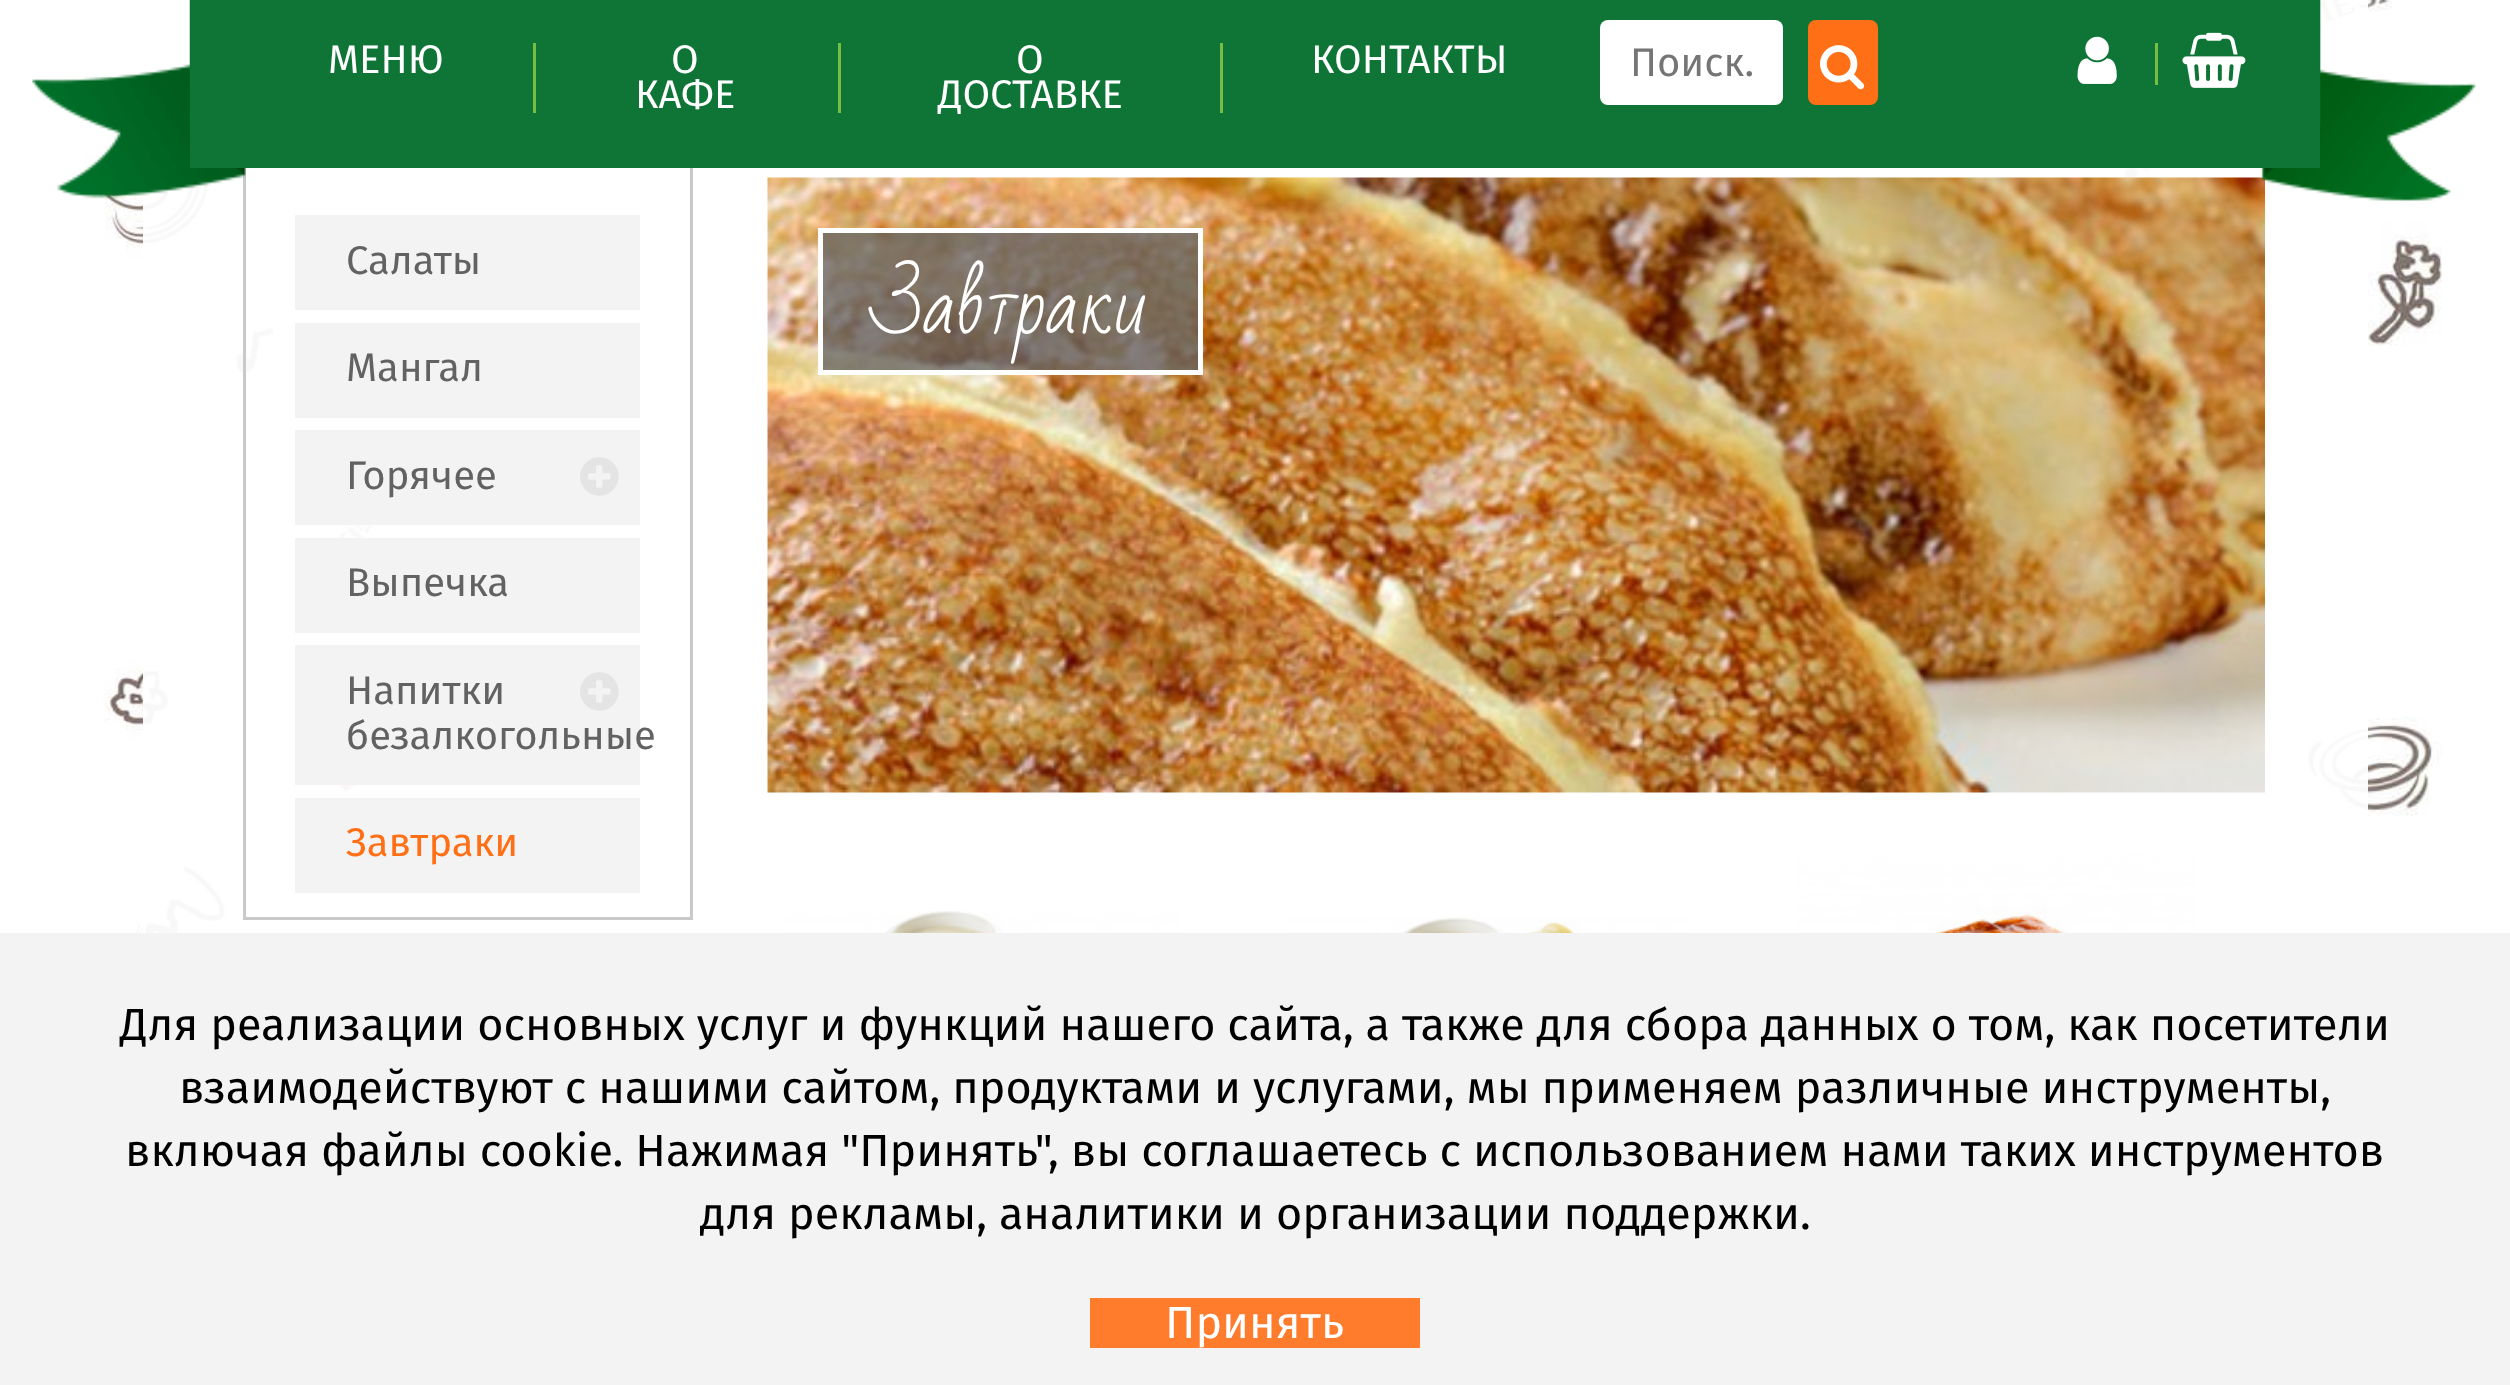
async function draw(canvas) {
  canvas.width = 2510;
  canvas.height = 1385;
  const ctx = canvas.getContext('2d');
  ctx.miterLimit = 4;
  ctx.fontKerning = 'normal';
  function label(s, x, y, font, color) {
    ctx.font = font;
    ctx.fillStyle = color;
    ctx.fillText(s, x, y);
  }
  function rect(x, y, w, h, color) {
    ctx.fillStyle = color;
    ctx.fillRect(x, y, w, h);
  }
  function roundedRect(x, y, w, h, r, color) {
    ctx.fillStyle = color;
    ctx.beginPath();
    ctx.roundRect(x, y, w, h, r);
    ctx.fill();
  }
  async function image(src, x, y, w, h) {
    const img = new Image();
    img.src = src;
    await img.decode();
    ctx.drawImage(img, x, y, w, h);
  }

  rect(0, 0, 2510, 1385, '#fff');
  await image('assets/img1.png', 84, 0, 2358, 933);
  ctx.strokeStyle = '#c9c9c9';
  ctx.lineWidth = 3;
  ctx.strokeRect(244.5, 21.5, 447, 897);
  await image('assets/img2.png', 32, 0, 214, 199);
  await image('assets/img8.png', 767, 177, 1498, 616);
  await image('assets/img4.png', 2261, 0, 215, 201);
  rect(190, 0, 2130, 168, '#0f7536');
  rect(533, 43, 3, 70, '#76bd43');
  label('МЕНЮ', 328, 73, '40px Fira Sans', '#fff');
  rect(838, 43, 3, 70, '#76bd43');
  label('О', 671, 73, '40px Fira Sans', '#fff');
  label('КАФЕ', 635, 108, '40px Fira Sans', '#fff');
  rect(1220, 43, 3, 70, '#76bd43');
  label('О', 1016, 73, '40px Fira Sans', '#fff');
  label('ДОСТАВКЕ', 938, 108, '40px Fira Sans', '#fff');
  label('КОНТАКТЫ', 1311, 73, '40px Fira Sans', '#fff');
  roundedRect(1600, 20, 183, 85, 8, '#fff');
  label('Поиск.', 1630, 76, '40px Fira Sans', '#757575');
  roundedRect(1808, 20, 70, 85, 8, '#ff6f15');
  await image('assets/img3.png', 1820, 45, 45, 45);
  rect(2155, 43, 3, 42, '#76bd43');
  await image('assets/img5.png', 2077, 36, 40, 48);
  await image('assets/img6.png', 2182, 32, 64, 56);
  rect(295, 215, 345, 95, '#f3f3f3');
  label('Салаты', 346, 274, '40px Fira Sans', '#626262');
  rect(295, 323, 345, 95, '#f3f3f3');
  label('Мангал', 346, 381, '40px Fira Sans', '#626262');
  rect(295, 430, 345, 95, '#f3f3f3');
  label('Горячее', 346, 489, '40px Fira Sans', '#626262');
  await image('assets/img7.png', 580, 457, 39, 39);
  rect(295, 538, 345, 95, '#f3f3f3');
  label('Выпечка', 346, 596, '40px Fira Sans', '#626262');
  rect(295, 645, 345, 140, '#f3f3f3');
  await image('assets/img7.png', 580, 672, 39, 39);
  label('Напитки', 346, 704, '40px Fira Sans', '#626262');
  label('безалкогольные', 346, 749, '40px Fira Sans', '#626262');
  rect(295, 798, 345, 95, '#f3f3f3');
  label('Завтраки', 346, 856, '40px Fira Sans', '#ff6f15');
  ctx.fillStyle = '#626262bf';
  ctx.beginPath();
  ctx.rect(820.5, 230.5, 380, 142);
  ctx.fill();
  ctx.strokeStyle = '#fff';
  ctx.lineWidth = 5;
  ctx.stroke();
  label('Завтраки', 872, 333, '75px Bad Script', '#fff');
  await image('assets/img9.png', 782, 911, 399, 22);
  await image('assets/img10.png', 1290, 917, 398, 16);
  await image('assets/img11.png', 1797, 855, 399, 78);
  rect(0, 933, 2510, 452, '#f3f3f3');
  label('Для реализации основных услуг и функций нашего сайта, а также для сбора данных о том, как посетители', 120, 1040, '45px Fira Sans', '#000');
  label('взаимодействуют с нашими сайтом, продуктами и услугами, мы применяем различные инструменты,', 179, 1103, '45px Fira Sans', '#000');
  label('включая файлы cookie. Нажимая "Принять", вы соглашаетесь с использованием нами таких инструментов', 125, 1166, '45px Fira Sans', '#000');
  label('для рекламы, аналитики и организации поддержки.', 700, 1229, '45px Fira Sans', '#000');
  rect(1090, 1298, 330, 50, '#fe7c2b');
  label('Принять', 1165, 1338, '45px Fira Sans', '#fff');
}

draw(document.querySelector('canvas'));
